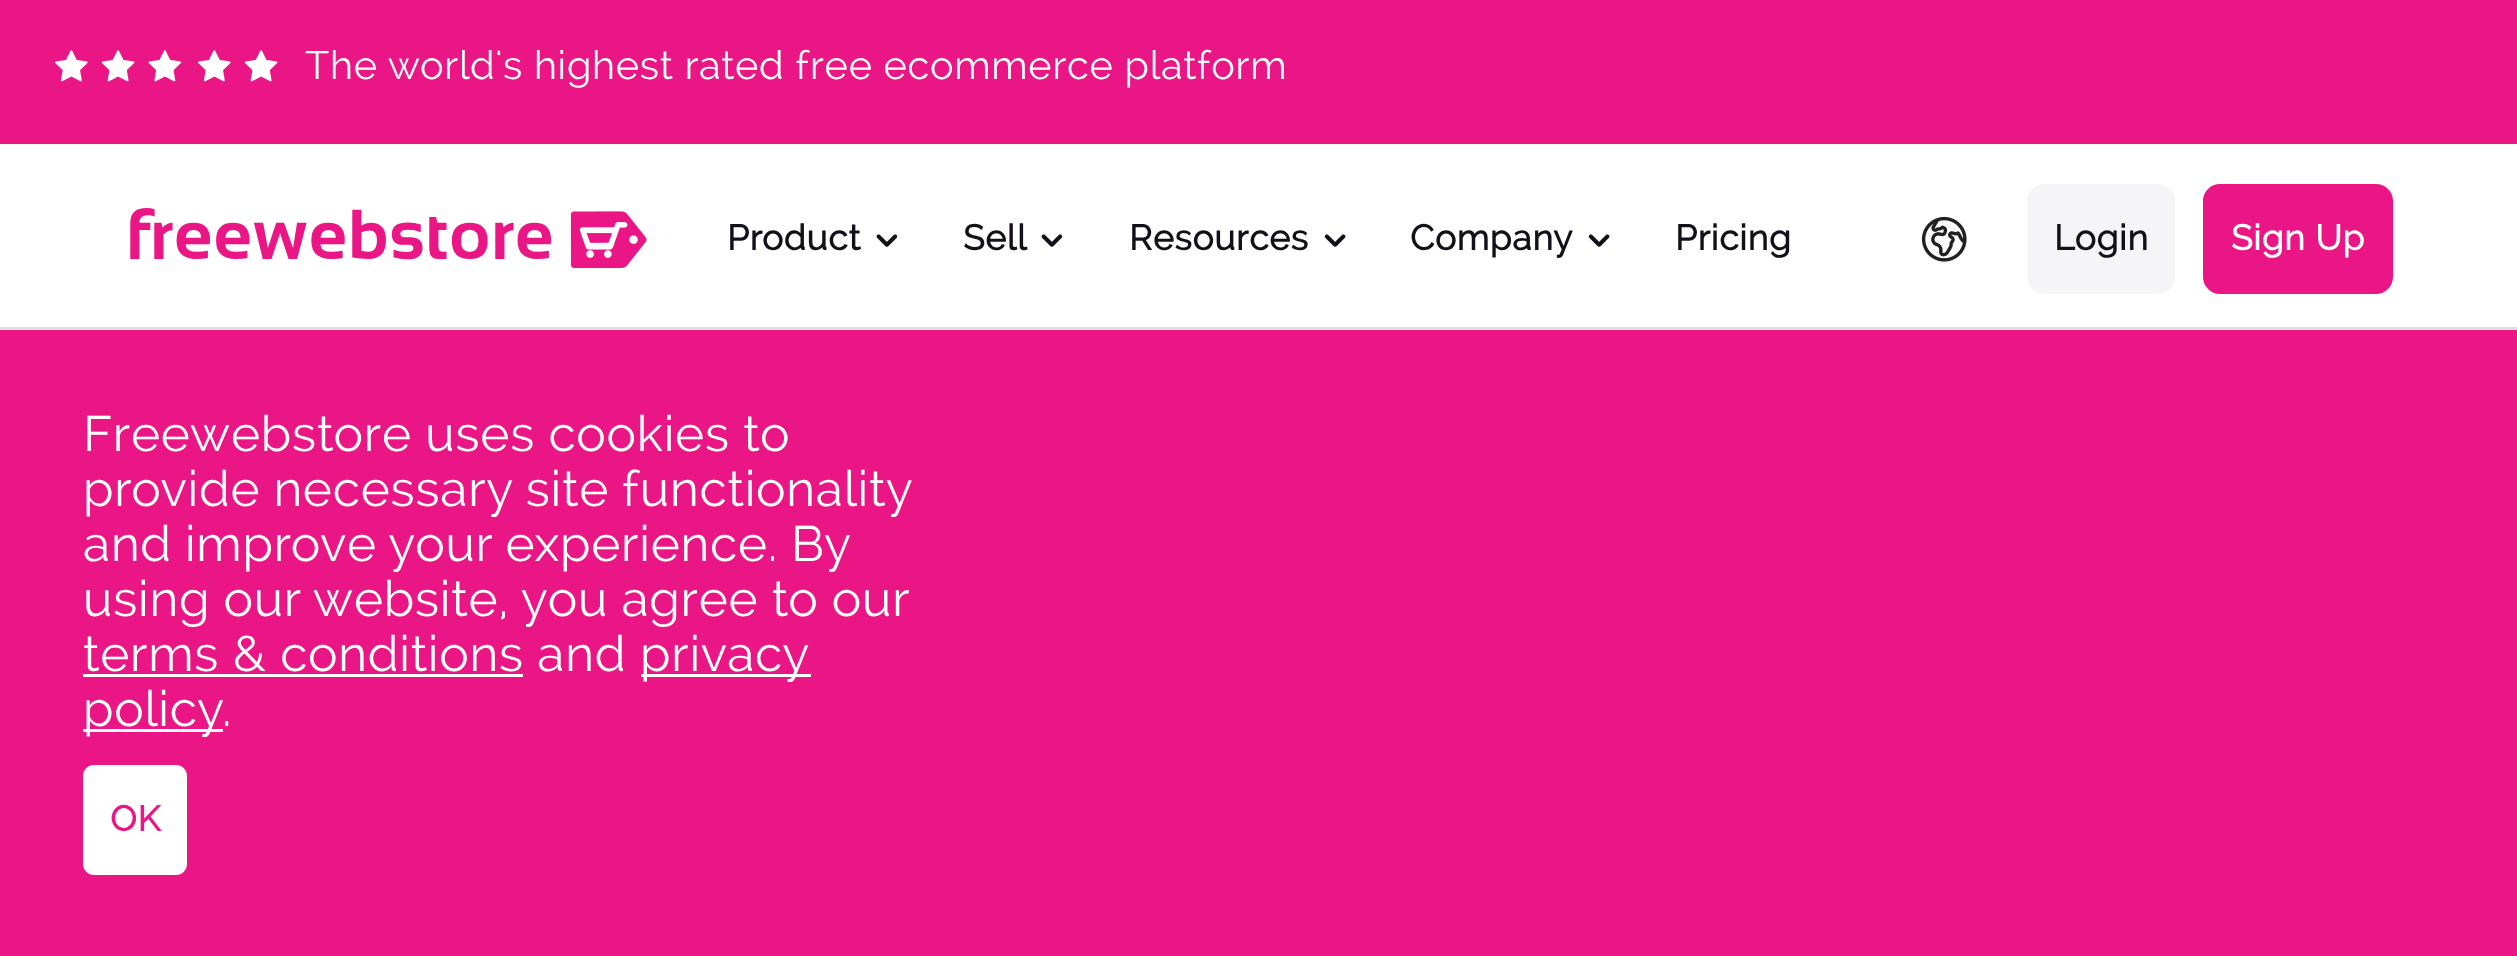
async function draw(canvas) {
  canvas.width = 2517;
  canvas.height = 956;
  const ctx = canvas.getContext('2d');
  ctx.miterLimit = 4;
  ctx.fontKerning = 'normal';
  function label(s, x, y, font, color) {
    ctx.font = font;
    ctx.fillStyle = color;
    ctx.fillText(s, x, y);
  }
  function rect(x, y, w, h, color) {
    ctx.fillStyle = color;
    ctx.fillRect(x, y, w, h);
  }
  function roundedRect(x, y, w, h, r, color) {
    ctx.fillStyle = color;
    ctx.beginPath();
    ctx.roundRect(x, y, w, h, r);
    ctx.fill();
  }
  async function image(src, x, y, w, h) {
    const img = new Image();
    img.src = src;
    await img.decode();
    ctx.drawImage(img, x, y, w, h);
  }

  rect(0, 0, 2517, 956, '#fff');
  rect(0, 0, 2517, 144, '#ea1686');
  await image('assets/img1.png', 55, 50, 33, 32);
  await image('assets/img2.png', 101, 50, 34, 32);
  await image('assets/img3.png', 148, 50, 34, 32);
  await image('assets/img1.png', 198, 50, 33, 32);
  await image('assets/img2.png', 244, 50, 34, 32);
  ctx.letterSpacing = '0.8px';
  label('The world\'s highest rated free ecommerce platform', 305, 79, '39.6px Raleway', '#fff');
  rect(0, 327, 2517, 3, '#ddd');
  label('freewebstore', 126, 259, 'bold 70.5px Sansation', '#ea1686');
  await image('assets/img4.png', 570, 211, 77, 58);
  label('Product', 727, 250, 'bold 35.25px Raleway', '#14101a');
  await image('assets/img5.png', 876, 234, 22, 13);
  label('Sell', 963, 250, 'bold 35.25px Raleway', '#14101a');
  await image('assets/img5.png', 1041, 234, 22, 13);
  label('Resources', 1129, 250, 'bold 35.25px Raleway', '#14101a');
  await image('assets/img6.png', 1324, 234, 22, 13);
  label('Company', 1410, 250, 'bold 35.25px Raleway', '#14101a');
  await image('assets/img6.png', 1588, 234, 22, 13);
  label('Pricing', 1675, 250, 'bold 35.25px Raleway', '#14101a');
  await image('assets/img7.png', 1921, 216, 46, 46);
  roundedRect(2027, 184, 148, 110, 17, '#f5f5f7');
  label('Login', 2054, 250, 'bold 35.25px Raleway', '#14101a');
  roundedRect(2203, 184, 190, 110, 17, '#ea1686');
  label('Sign Up', 2231, 250, 'bold 35.25px Raleway', '#fff');
  rect(0, 330, 2517, 626, '#ea1686');
  label('Freewebstore uses cookies to', 83, 451, '49.5px Raleway', '#fff');
  ctx.wordSpacing = '-0.5px';
  label('provide necessary site functionality', 83, 506, '49.5px Raleway', '#fff');
  label('and improve your experience. By', 83, 561, '49.5px Raleway', '#fff');
  ctx.wordSpacing = '-0.25px';
  label('using our website, you agree to our', 83, 616, '49.5px Raleway', '#fff');
  ctx.wordSpacing = '0px';
  label('terms & conditions and', 83, 671, '49.5px Raleway', '#fff');
  rect(83, 674, 440, 3, '#fff');
  rect(641, 674, 170, 3, '#fff');
  label('privacy', 640, 671, '49.5px Raleway', '#fff');
  rect(83, 729, 140, 3, '#fff');
  label('policy', 83, 726, '49.5px Raleway', '#fff');
  label('.', 222, 726, '49.5px Raleway', '#fff');
  roundedRect(83, 765, 104, 110, 11, '#fff');
  label('OK', 110, 831, 'bold 35.25px Raleway', '#ea1686');
}

draw(document.querySelector('canvas'));
